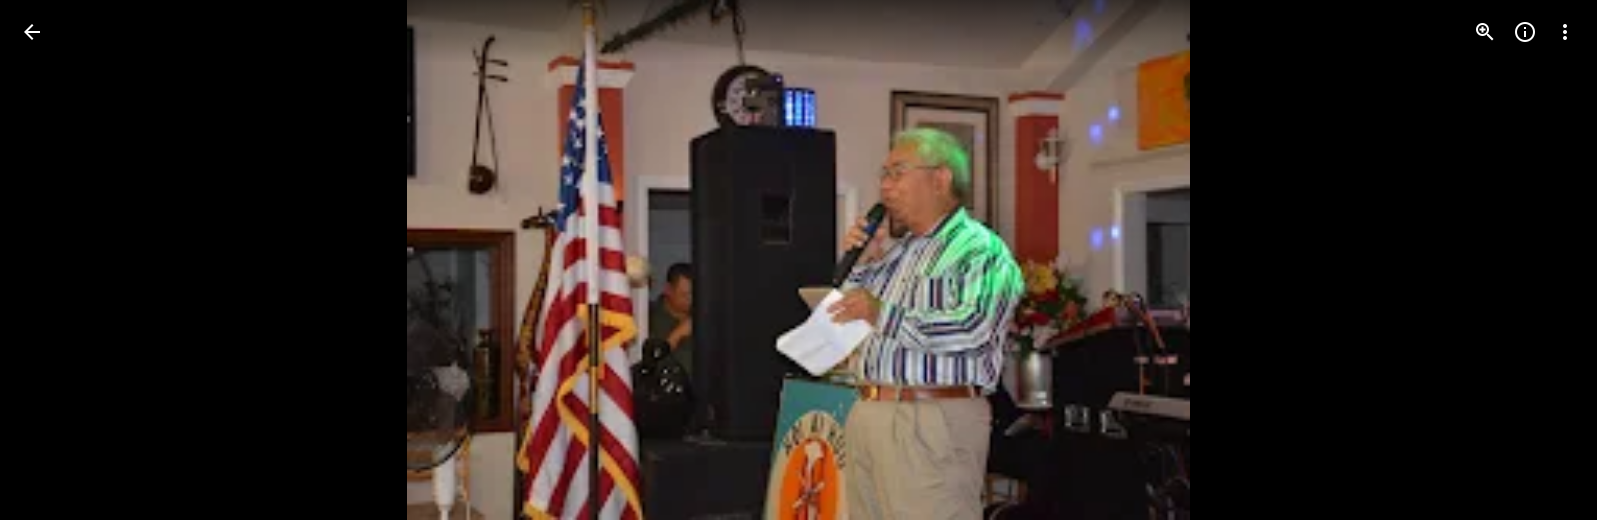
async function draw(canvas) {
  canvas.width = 1597;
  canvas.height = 520;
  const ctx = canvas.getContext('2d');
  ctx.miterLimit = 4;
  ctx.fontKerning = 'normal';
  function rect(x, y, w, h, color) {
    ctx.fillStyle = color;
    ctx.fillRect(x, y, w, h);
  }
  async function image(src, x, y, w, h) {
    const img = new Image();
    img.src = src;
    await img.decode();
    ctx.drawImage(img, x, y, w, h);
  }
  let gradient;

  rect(0, 0, 1597, 520, '#000');
  await image('assets/img5.png', 407, 0, 783, 520);
  gradient = ctx.createLinearGradient(799, 0, 799, 64);
  gradient.addColorStop(0, '#00000099');
  gradient.addColorStop(1, '#00000000');
  ctx.fillStyle = gradient;
  ctx.fillRect(407, 0, 783, 62);
  await image('assets/img1.png', 24, 24, 16, 16);
  await image('assets/img2.png', 1476, 23, 18, 18);
  await image('assets/img3.png', 1515, 22, 20, 20);
  await image('assets/img4.png', 1563, 24, 4, 16);
}

draw(document.querySelector('canvas'));
